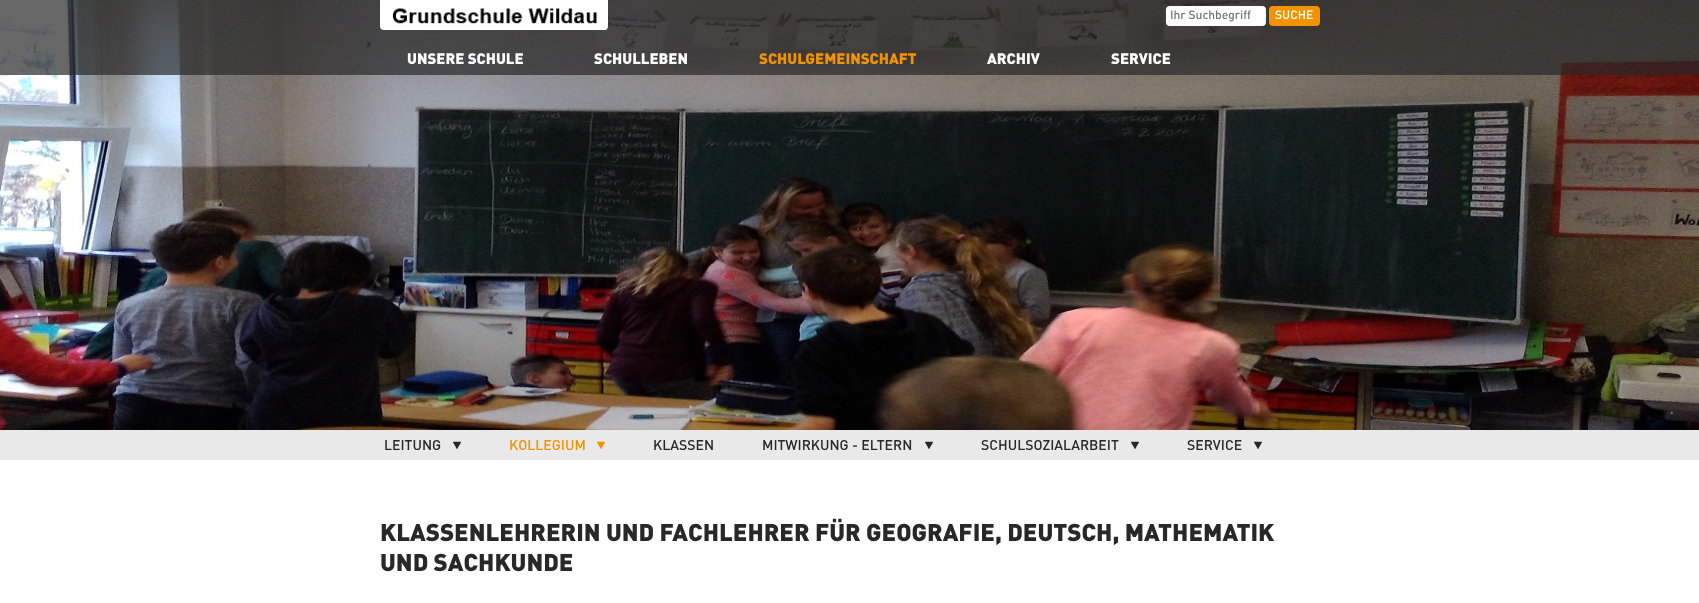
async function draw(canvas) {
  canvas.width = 1699;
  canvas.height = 603;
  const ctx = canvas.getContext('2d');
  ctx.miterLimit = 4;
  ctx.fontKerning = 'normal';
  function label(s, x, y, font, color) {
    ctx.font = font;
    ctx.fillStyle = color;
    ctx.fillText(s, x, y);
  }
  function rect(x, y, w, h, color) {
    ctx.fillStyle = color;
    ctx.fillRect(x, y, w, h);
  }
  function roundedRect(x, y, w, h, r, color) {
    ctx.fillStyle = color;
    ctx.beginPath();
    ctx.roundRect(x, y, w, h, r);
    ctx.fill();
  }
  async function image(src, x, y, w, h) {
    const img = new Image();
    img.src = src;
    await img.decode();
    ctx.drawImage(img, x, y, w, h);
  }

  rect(0, 0, 1699, 603, '#fff');
  rect(0, 430, 1699, 30, '#e9e9e9');
  await image('assets/img1.png', 0, 0, 1699, 430);
  rect(0, 0, 1699, 75, '#282828b3');
  ctx.fillStyle = '#fff';
  ctx.beginPath();
  ctx.roundRect(380, 0, 228, 30, [0, 0, 4, 4]);
  ctx.fill();
  await image('assets/img2.png', 392, 8, 215, 22);
  roundedRect(1166, 6, 100, 20, 4, '#fff');
  label('Ihr Suchbegriff', 1170, 19, '500 12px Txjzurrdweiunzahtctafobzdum', '#757575');
  roundedRect(1269, 6, 51, 20, 4, '#f39300');
  label('SUCHE', 1275, 19, '500 12px Txjzurrdweiunzahtctafobzdum', '#fff');
  label('SCHULGEMEINSCHAFT', 759, 64, '900 15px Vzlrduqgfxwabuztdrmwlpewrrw', '#f39300');
  await image('assets/img3.png', 453, 441, 8, 8);
  label('LEITUNG', 384, 450, '500 14px Txjzurrdweiunzahtctafobzdum', '#282828');
  await image('assets/img4.png', 597, 441, 8, 8);
  label('KOLLEGIUM', 509, 450, '500 14px Txjzurrdweiunzahtctafobzdum', '#f39300');
  label('KLASSEN', 653, 450, '500 14px Txjzurrdweiunzahtctafobzdum', '#282828');
  await image('assets/img3.png', 925, 441, 8, 8);
  label('MITWIRKUNG - ELTERN', 762, 450, '500 14px Txjzurrdweiunzahtctafobzdum', '#282828');
  await image('assets/img3.png', 1131, 441, 8, 8);
  label('SCHULSOZIALARBEIT', 981, 450, '500 14px Txjzurrdweiunzahtctafobzdum', '#282828');
  await image('assets/img3.png', 1254, 441, 8, 8);
  label('SERVICE', 1187, 450, '500 14px Txjzurrdweiunzahtctafobzdum', '#282828');
  label('UNSERE SCHULE', 407, 64, '900 15px Vzlrduqgfxwabuztdrmwlpewrrw', '#fff');
  label('SCHULLEBEN', 594, 64, '900 15px Vzlrduqgfxwabuztdrmwlpewrrw', '#fff');
  label('ARCHIV', 987, 64, '900 15px Vzlrduqgfxwabuztdrmwlpewrrw', '#fff');
  label('SERVICE', 1111, 64, '900 15px Vzlrduqgfxwabuztdrmwlpewrrw', '#fff');
  label('KLASSENLEHRERIN UND FACHLEHRER FÜR GEOGRAFIE, DEUTSCH, MATHEMATIK', 380, 541, '900 24px Vzlrduqgfxwabuztdrmwlpewrrw', '#282828');
  label('UND SACHKUNDE', 380, 571, '900 24px Vzlrduqgfxwabuztdrmwlpewrrw', '#282828');
}

draw(document.querySelector('canvas'));
